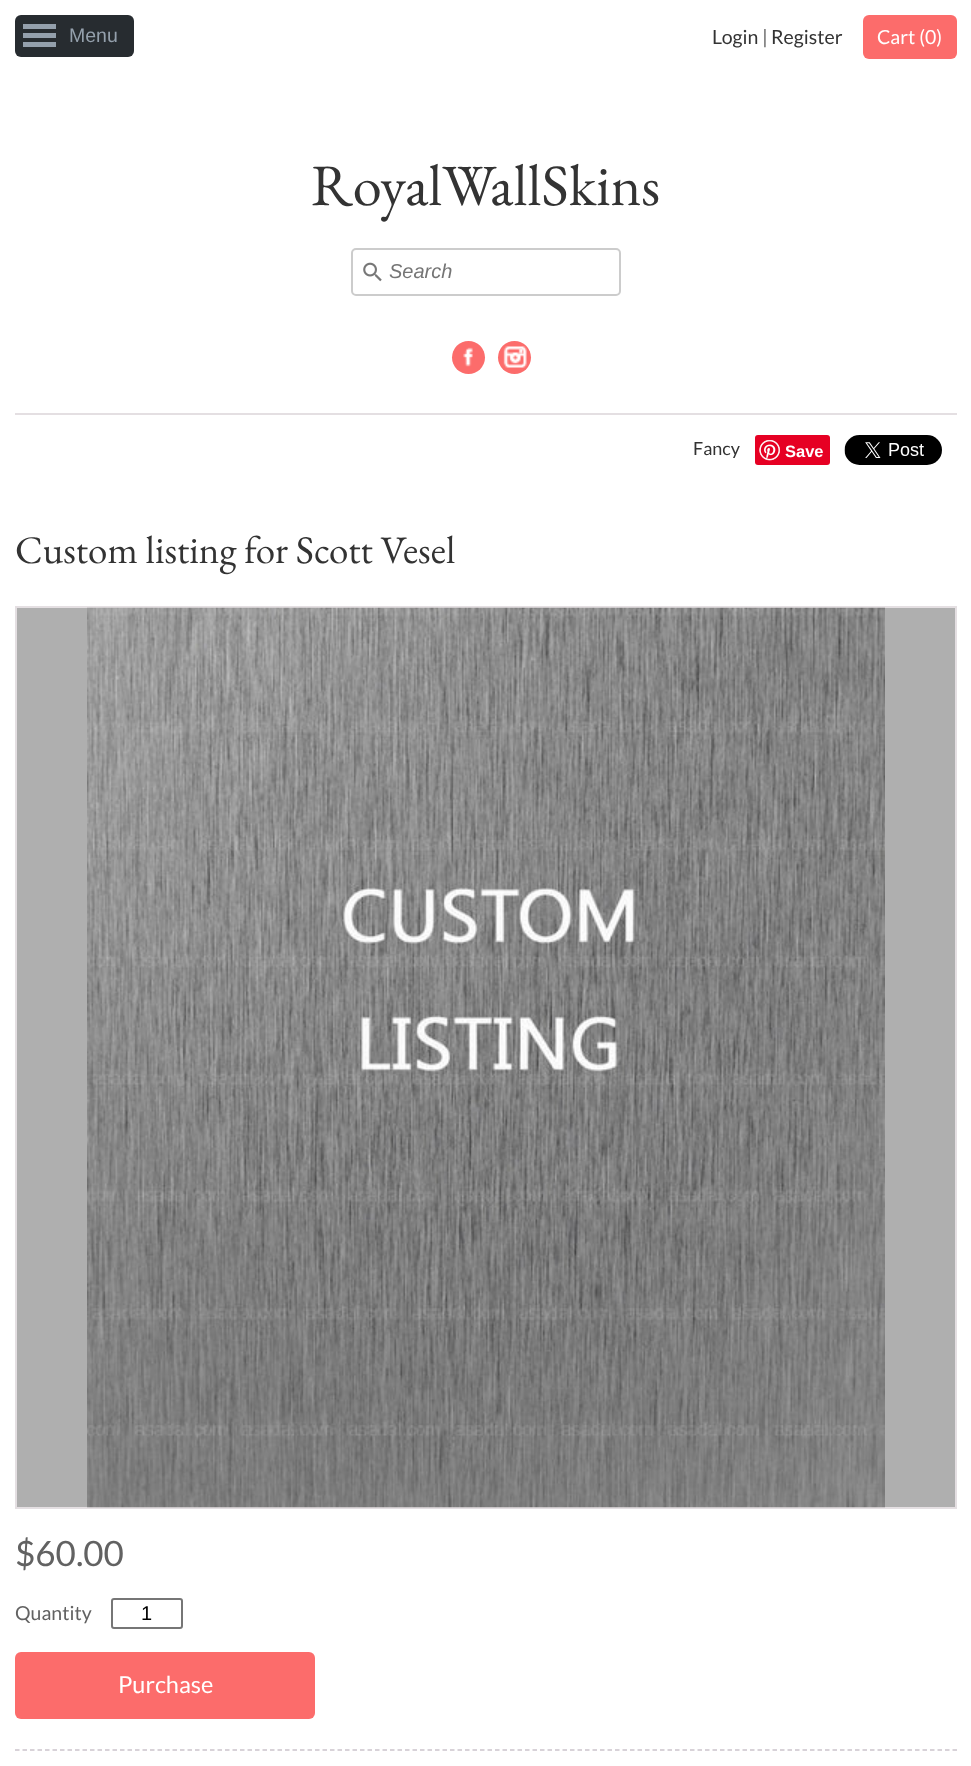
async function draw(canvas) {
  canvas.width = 971;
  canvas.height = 1766;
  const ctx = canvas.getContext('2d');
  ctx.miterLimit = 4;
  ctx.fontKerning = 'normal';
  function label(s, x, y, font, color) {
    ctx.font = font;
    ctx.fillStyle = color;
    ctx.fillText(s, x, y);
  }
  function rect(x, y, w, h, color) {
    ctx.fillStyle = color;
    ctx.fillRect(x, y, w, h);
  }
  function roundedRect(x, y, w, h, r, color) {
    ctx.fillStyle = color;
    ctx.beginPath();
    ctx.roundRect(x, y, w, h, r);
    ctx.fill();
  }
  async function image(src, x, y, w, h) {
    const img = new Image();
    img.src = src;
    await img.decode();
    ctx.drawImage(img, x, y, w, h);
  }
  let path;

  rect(0, 0, 971, 1766, '#fff');
  roundedRect(15, 15, 119, 42, 6, '#272c30');
  rect(23, 24, 33, 5, '#94a0ac');
  rect(23, 33, 33, 5, '#94a0ac');
  label('Menu', 69, 42, '19.5px Liberation Sans', '#94a0ac');
  rect(23, 42, 33, 5, '#94a0ac');
  label('Login', 712, 44, '19.5px Lato', '#333');
  label('|', 762, 44, '19.5px Lato', '#626262');
  label('Register', 771, 44, '19.5px Lato', '#333');
  roundedRect(863, 15, 94, 44, 6, '#fc6c6b');
  label('Cart (0)', 877, 44, '19.5px Lato', '#fff');
  label('RoyalWallSkins', 311, 205, '58.5px EB Garamond', '#333');
  await image('assets/img1.png', 363, 262, 19, 20);
  ctx.beginPath();
  ctx.roundRect(352, 249, 268, 46, 4);
  ctx.strokeStyle = '#ccc';
  ctx.lineWidth = 2;
  ctx.stroke();
  label('Search', 389, 278, 'italic 20px Liberation Sans', '#757575');
  ctx.fillStyle = '#fc6c6b';
  ctx.beginPath();
  ctx.arc(468.5, 357.5, 16.5, 0, 2 * Math.PI);
  ctx.fill();
  await image('assets/img2.png', 463, 347, 10, 20);
  ctx.beginPath();
  ctx.arc(514.5, 357.5, 16.5, 0, 2 * Math.PI);
  ctx.fill();
  await image('assets/img3.png', 503, 346, 24, 22);
  rect(15, 413, 942, 2, '#e4dfe2');
  label('Fancy', 693, 455, '18px Lato', '#333');
  roundedRect(755, 435, 75, 30, 3, '#e60023');
  await image('assets/img4.png', 759, 440, 21, 21);
  label('Save', 785, 457, 'bold 16.5px Liberation Sans', '#fff');
  await image('assets/img5.png', 844, 435, 98, 30);
  label('Custom listing for Scott Vesel', 15, 563, '39px EB Garamond', '#333');
  ctx.fillStyle = '#afafaf';
  ctx.beginPath();
  ctx.rect(16, 607, 940, 901);
  ctx.fill();
  ctx.strokeStyle = '#e4dfe2';
  ctx.stroke();
  await image('assets/img6.png', 87, 607, 798, 901);
  label('$60.00', 15, 1566, '35px Lato', '#626262');
  label('Quantity', 15, 1620, '19.5px Lato', '#626262');
  ctx.beginPath();
  ctx.roundRect(112, 1599, 70, 29, 2);
  ctx.strokeStyle = '#767676';
  ctx.stroke();
  label('1', 141, 1620, '20px Liberation Sans', '#000');
  roundedRect(15, 1652, 300, 67, 6, '#fc6c6b');
  label('Purchase', 118, 1693, '23.5px Lato', '#fff');
  path = new Path2D('M15 1750H957');
  ctx.strokeStyle = '#cbc4cc';
  ctx.lineWidth = 1.5;
  ctx.setLineDash([4.5, 3]);
  ctx.stroke(path);
}

draw(document.querySelector('canvas'));
